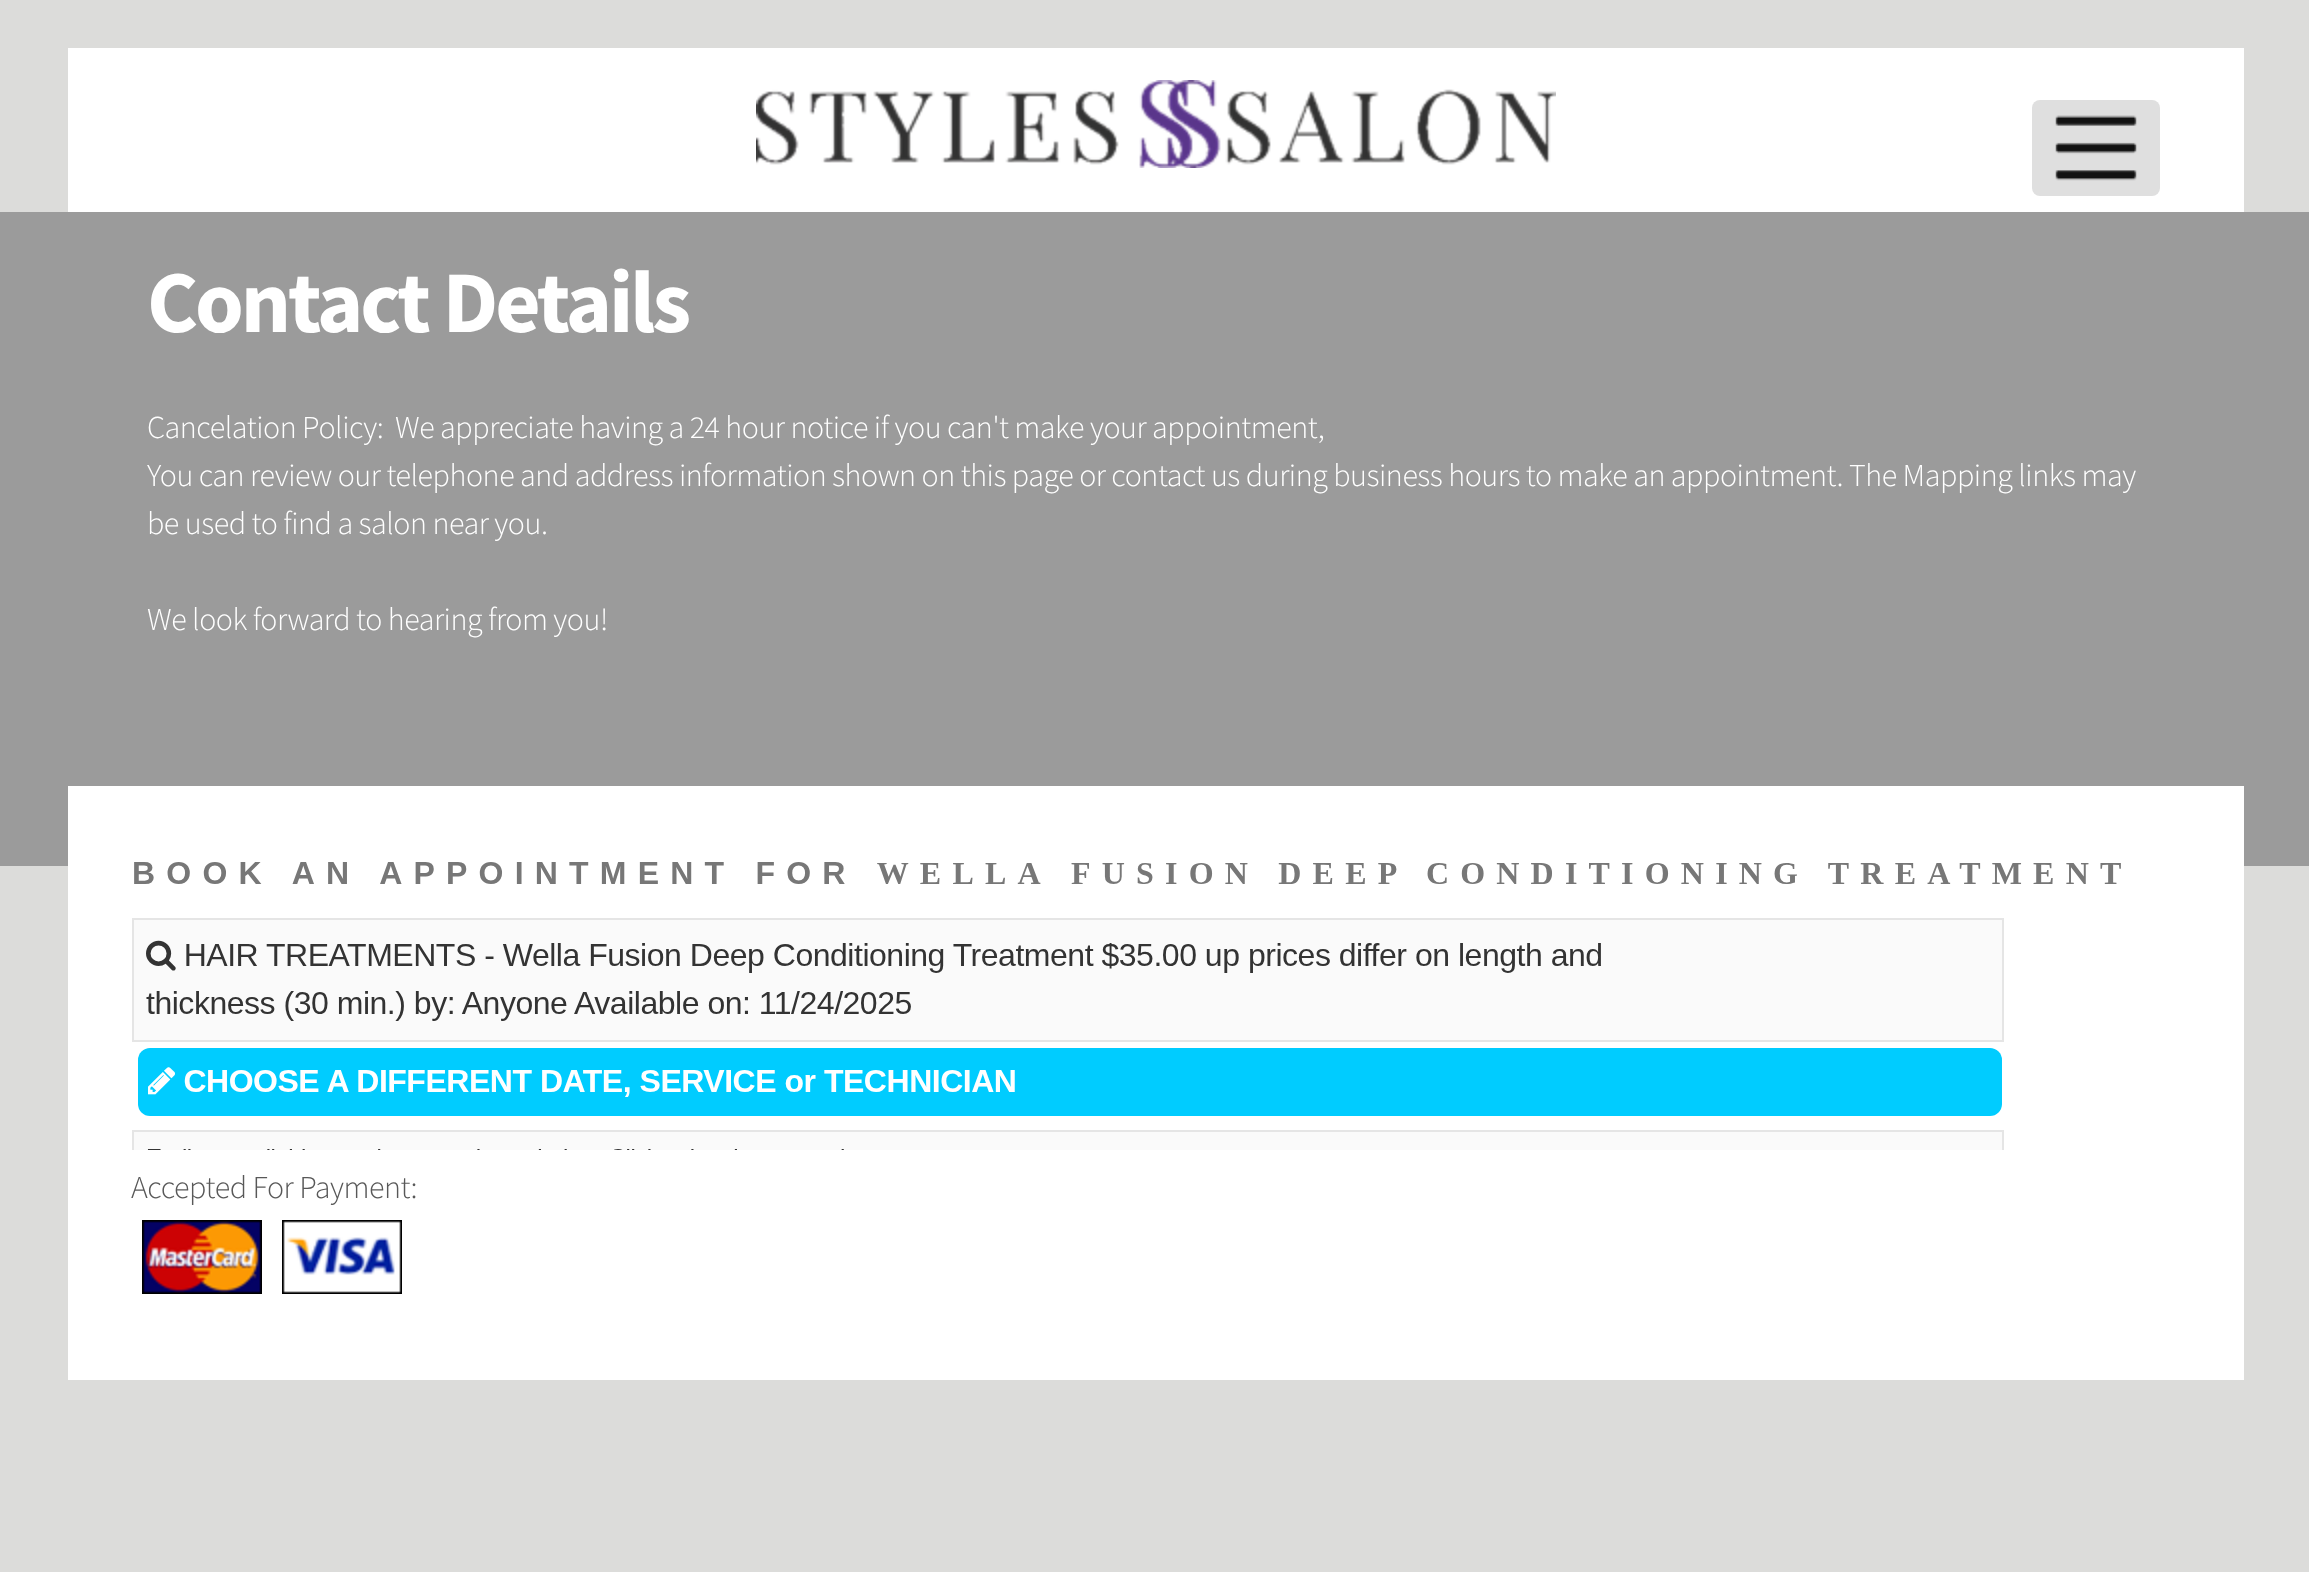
async function draw(canvas) {
  canvas.width = 2309;
  canvas.height = 1572;
  const ctx = canvas.getContext('2d');
  ctx.miterLimit = 4;
  ctx.fontKerning = 'normal';
  function label(s, x, y, font, color) {
    ctx.font = font;
    ctx.fillStyle = color;
    ctx.fillText(s, x, y);
  }
  function rect(x, y, w, h, color) {
    ctx.fillStyle = color;
    ctx.fillRect(x, y, w, h);
  }
  function roundedRect(x, y, w, h, r, color) {
    ctx.fillStyle = color;
    ctx.beginPath();
    ctx.roundRect(x, y, w, h, r);
    ctx.fill();
  }
  async function image(src, x, y, w, h) {
    const img = new Image();
    img.src = src;
    await img.decode();
    ctx.drawImage(img, x, y, w, h);
  }

  rect(0, 0, 2309, 1572, '#dcdcda');
  rect(68, 48, 2176, 164, '#fff');
  await image('assets/img1.png', 756, 80, 800, 88);
  roundedRect(2032, 100, 128, 96, 8, '#dfdfdf');
  await image('assets/img2.png', 2055, 115, 82, 66);
  rect(0, 212, 2309, 654, '#9b9b9b');
  ctx.letterSpacing = '-3.1px';
  label('Contact Details', 147, 332, 'bold 88px Source Sans Pro', '#fff');
  ctx.letterSpacing = '-0.48px';
  label('Cancelation Policy:  We appreciate having a 24 hour notice if you can\'t make your appointment,', 147, 438, '300 32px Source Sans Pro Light', '#fff');
  label('You can review our telephone and address information shown on this page or contact us during business hours to make an appointment. The Mapping links may', 147, 486, '300 32px Source Sans Pro Light', '#fff');
  label('be used to find a salon near you.', 147, 534, '300 32px Source Sans Pro Light', '#fff');
  label('We look forward to hearing from you!', 147, 630, '300 32px Source Sans Pro Light', '#fff');
  rect(68, 786, 2176, 594, '#fff');
  await image('assets/img3.png', 132, 862, 1989, 288);
  label('Accepted For Payment:', 131, 1198, '300 32px Source Sans Pro Light', '#585858');
  await image('assets/img4.png', 142, 1220, 120, 74);
  await image('assets/img5.png', 282, 1220, 120, 74);
}

draw(document.querySelector('canvas'));
